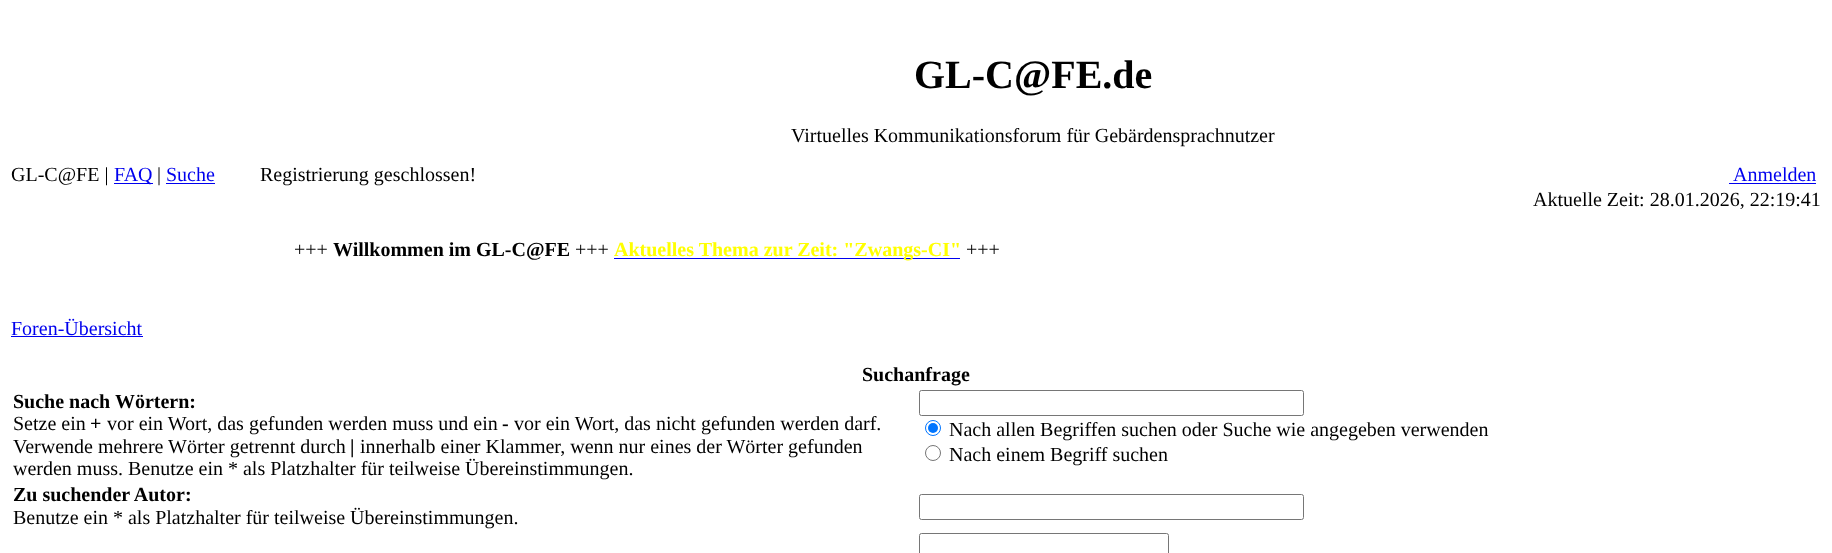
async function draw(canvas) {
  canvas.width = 1832;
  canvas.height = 553;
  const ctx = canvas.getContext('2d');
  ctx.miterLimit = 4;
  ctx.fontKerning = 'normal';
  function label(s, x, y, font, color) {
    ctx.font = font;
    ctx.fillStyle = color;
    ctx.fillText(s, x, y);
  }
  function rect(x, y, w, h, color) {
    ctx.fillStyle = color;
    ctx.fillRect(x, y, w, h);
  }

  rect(0, 0, 1832, 553, '#fff');
  label('GL-C@FE.de', 914, 88, 'bold 40px Liberation Serif', '#000');
  label('Virtuelles Kommunikationsforum für Gebärdensprachnutzer', 791, 142, '20px Liberation Serif', '#000');
  label('GL-C@FE |', 11, 181, '20px Liberation Serif', '#000');
  rect(114, 183, 39, 1, '#00e');
  label('FAQ', 114, 181, '20px Liberation Serif', '#00e');
  label('|', 157, 181, '20px Liberation Serif', '#000');
  label('Suche', 166, 181, '20px Liberation Serif', '#00e');
  rect(166, 183, 49, 1, '#00e');
  label('Registrierung geschlossen!', 260, 181, '20px Liberation Serif', '#000');
  label('Anmelden', 1733, 181, '20px Liberation Serif', '#00e');
  rect(1729, 183, 87, 1, '#00e');
  label('Aktuelle Zeit: 28.01.2026, 22:19:41', 1533, 206, '20px Liberation Serif', '#000');
  label('+++', 294, 256, '20px Liberation Serif', '#000');
  label('Willkommen im GL-C@FE', 333, 256, 'bold 20px Liberation Serif', '#000');
  label('+++', 575, 256, '20px Liberation Serif', '#000');
  rect(614, 258, 346, 1, '#00e');
  label('Aktuelles Thema zur Zeit: "Zwangs-CI"', 614, 256, 'bold 20px Liberation Serif', '#ff0');
  label('+++', 966, 256, '20px Liberation Serif', '#000');
  label('Foren-Übersicht', 11, 335, '20px Liberation Serif', '#00e');
  rect(11, 336, 132, 1, '#00e');
  label('Suchanfrage', 862, 381, 'bold 20px Liberation Serif', '#000');
  label('Suche nach Wörtern:', 13, 408, 'bold 20px Liberation Serif', '#000');
  label('Setze ein', 13, 430, '20px Liberation Serif', '#000');
  label('+', 90, 430, 'bold 20px Liberation Serif', '#000');
  label('vor ein Wort, das gefunden werden muss und ein', 107, 430, '20px Liberation Serif', '#000');
  label('-', 502, 430, 'bold 20px Liberation Serif', '#000');
  label('vor ein Wort, das nicht gefunden werden darf.', 514, 430, '20px Liberation Serif', '#000');
  label('Verwende mehrere Wörter getrennt durch', 13, 453, '20px Liberation Serif', '#000');
  label('|', 350, 453, 'bold 20px Liberation Serif', '#000');
  label('innerhalb einer Klammer, wenn nur eines der Wörter gefunden', 360, 453, '20px Liberation Serif', '#000');
  label('werden muss. Benutze ein * als Platzhalter für teilweise Übereinstimmungen.', 13, 475, '20px Liberation Serif', '#000');
  ctx.beginPath();
  ctx.roundRect(919.5, 390.5, 384, 25, 2);
  ctx.strokeStyle = '#767676';
  ctx.stroke();
  ctx.beginPath();
  ctx.arc(933, 428, 7.5, 0, 2 * Math.PI);
  ctx.strokeStyle = '#0075ff';
  ctx.stroke();
  ctx.fillStyle = '#0075ff';
  ctx.beginPath();
  ctx.arc(933, 428, 5, 0, 2 * Math.PI);
  ctx.fill();
  label('Nach allen Begriffen suchen oder Suche wie angegeben verwenden', 949, 436, '20px Liberation Serif', '#000');
  ctx.beginPath();
  ctx.arc(933, 453, 7.5, 0, 2 * Math.PI);
  ctx.strokeStyle = '#767676';
  ctx.stroke();
  label('Nach einem Begriff suchen', 949, 461, '20px Liberation Serif', '#000');
  label('Zu suchender Autor:', 13, 501, 'bold 20px Liberation Serif', '#000');
  label('Benutze ein * als Platzhalter für teilweise Übereinstimmungen.', 13, 524, '20px Liberation Serif', '#000');
  ctx.beginPath();
  ctx.roundRect(919.5, 494.5, 384, 25, 2);
  ctx.stroke();
  ctx.beginPath();
  ctx.roundRect(919.5, 533.5, 249, 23, 2);
  ctx.stroke();
}

draw(document.querySelector('canvas'));
